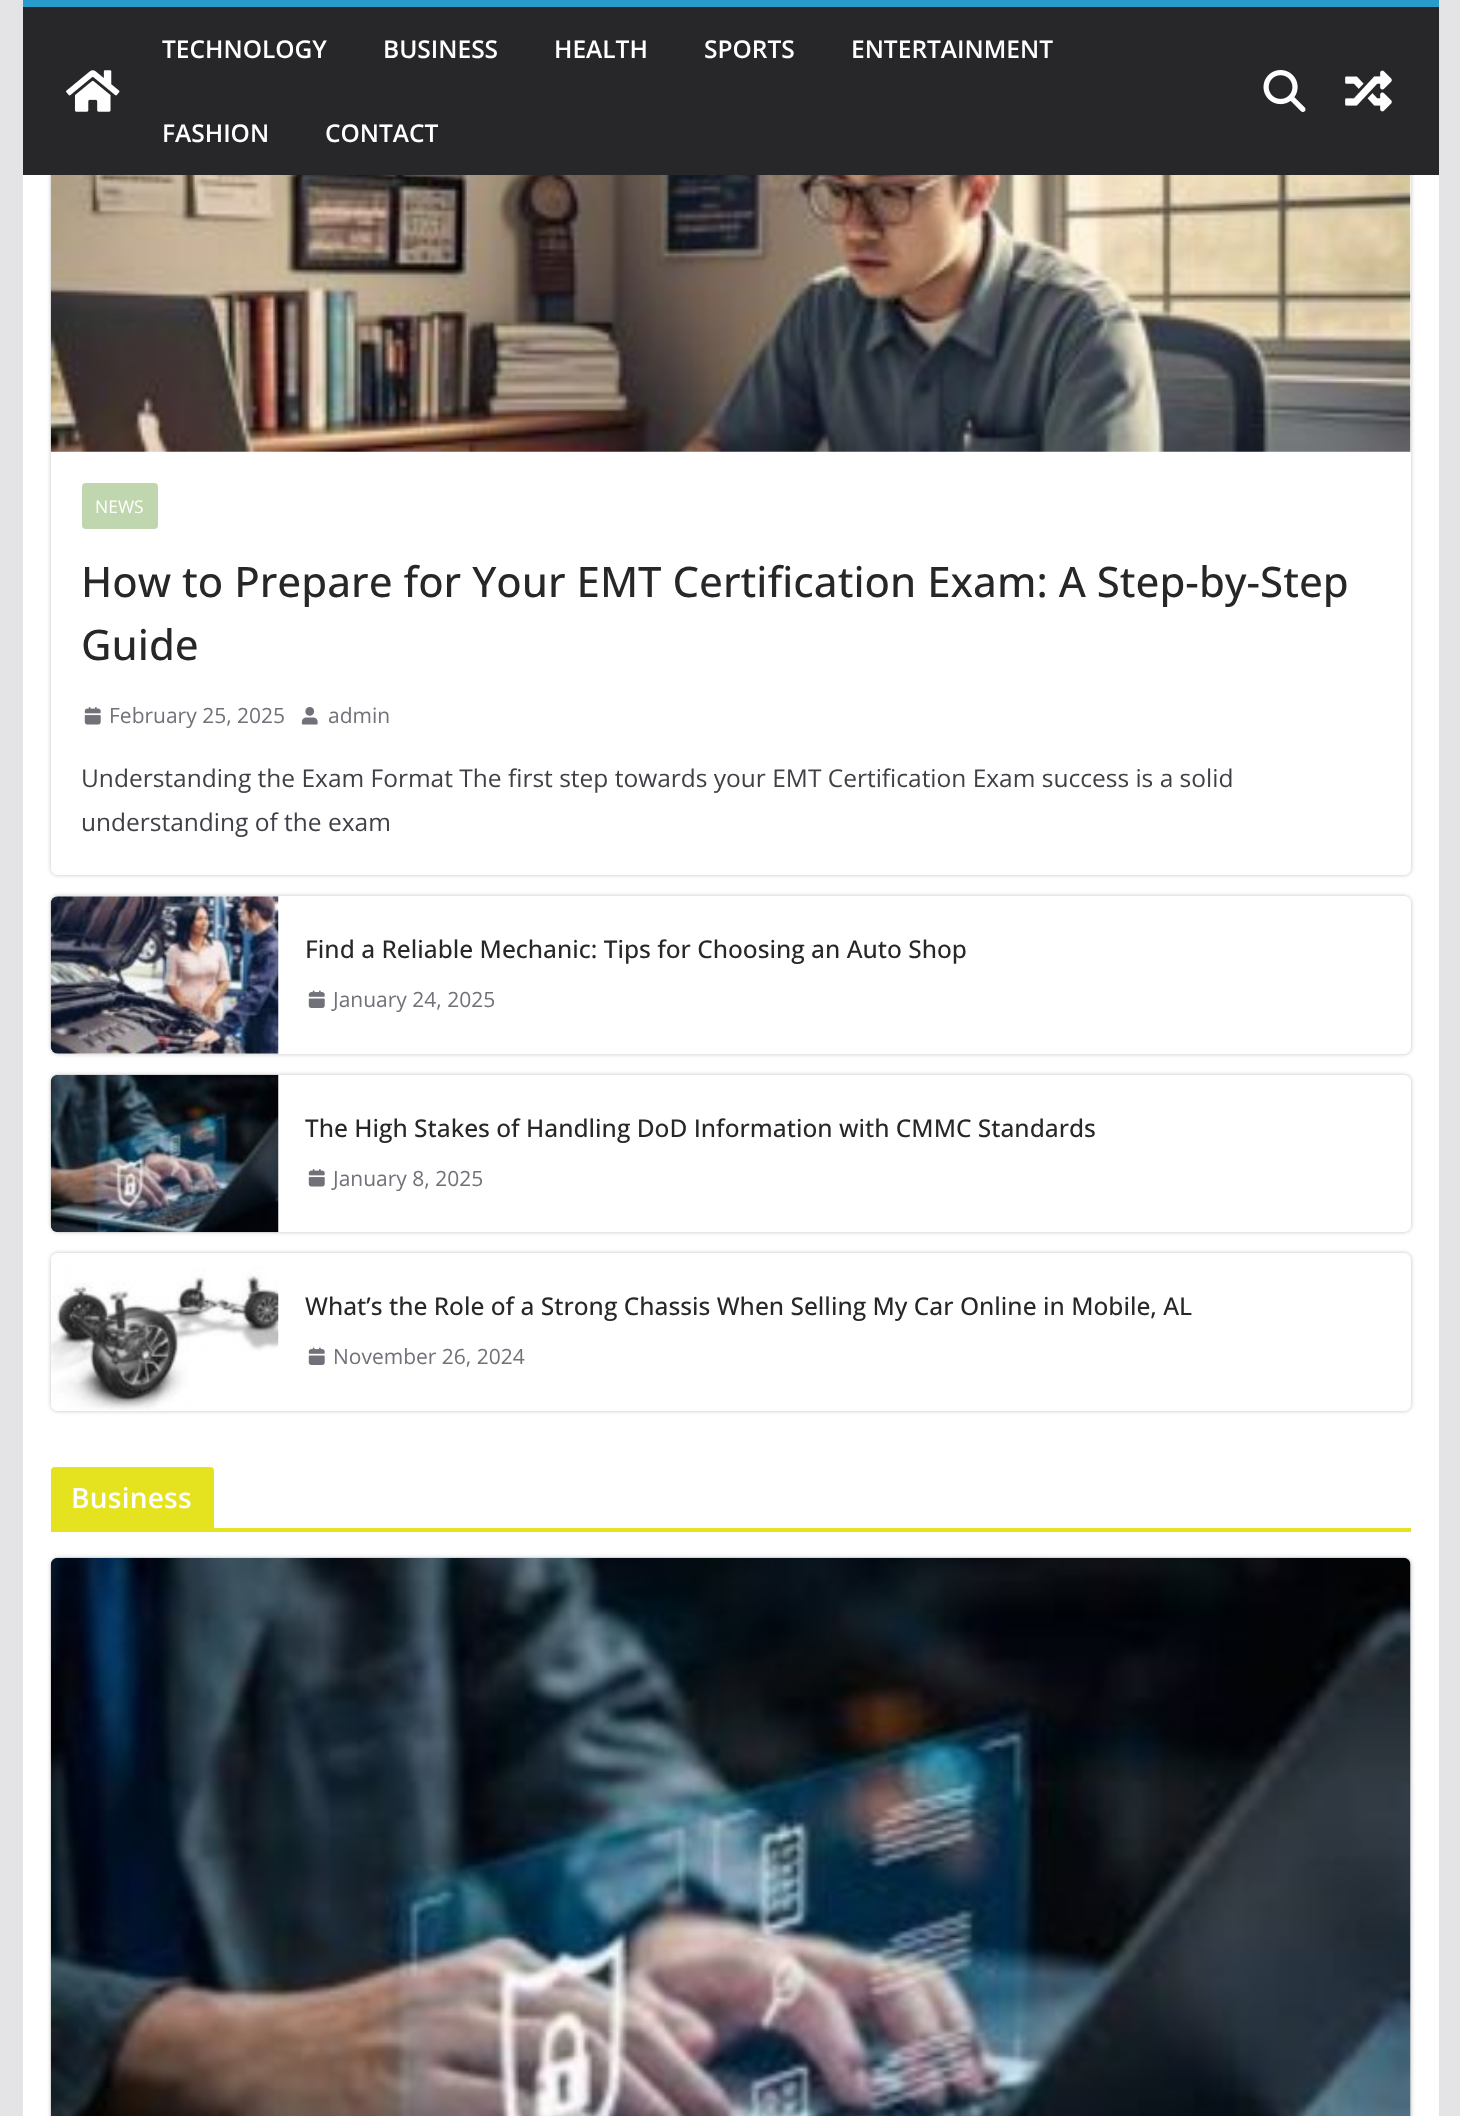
async function draw(canvas) {
  canvas.width = 1460;
  canvas.height = 2116;
  const ctx = canvas.getContext('2d');
  ctx.miterLimit = 4;
  ctx.fontKerning = 'normal';
  function label(s, x, y, font, color) {
    ctx.font = font;
    ctx.fillStyle = color;
    ctx.fillText(s, x, y);
  }
  function rect(x, y, w, h, color) {
    ctx.fillStyle = color;
    ctx.fillRect(x, y, w, h);
  }
  function roundedRect(x, y, w, h, r, color) {
    ctx.fillStyle = color;
    ctx.beginPath();
    ctx.roundRect(x, y, w, h, r);
    ctx.fill();
  }
  async function image(src, x, y, w, h) {
    const img = new Image();
    img.src = src;
    await img.decode();
    ctx.drawImage(img, x, y, w, h);
  }
  let path;

  rect(0, 0, 1460, 2116, '#e4e4e7');
  rect(23, 175, 1416, 1941, '#fff');
  ctx.save();
  path = new Path2D('M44 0H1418V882H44ZM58-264H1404C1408-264 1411-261 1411-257V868C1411 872 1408 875 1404 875H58C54 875 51 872 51 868V-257C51-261 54-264 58-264Z');
  ctx.clip(path, 'evenodd');
  ctx.fillStyle = '#0000003d';
  ctx.filter = 'blur(2px)';
  ctx.beginPath();
  ctx.roundRect(51, -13, 1360, 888, 7);
  ctx.fill();
  ctx.filter = 'none';
  ctx.restore();
  rect(23, 7, 1416, 168, '#27272a');
  rect(23, 0, 1416, 7, '#289dcc');
  await image('assets/img1.png', 66, 70, 54, 42);
  label('TECHNOLOGY', 162, 58, '600 24.5px Open Sans', '#fff');
  label('BUSINESS', 383, 58, '600 24.5px Open Sans', '#fff');
  label('HEALTH', 554, 58, '600 24.5px Open Sans', '#fff');
  label('SPORTS', 704, 58, '600 24.5px Open Sans', '#fff');
  label('ENTERTAINMENT', 851, 58, '600 24.5px Open Sans', '#fff');
  label('FASHION', 162, 142, '600 24.5px Open Sans', '#fff');
  label('CONTACT', 325, 142, '600 24.5px Open Sans', '#fff');
  await image('assets/img2.png', 1263, 70, 43, 42);
  await image('assets/img3.png', 1345, 70, 47, 42);
  await image('assets/img4.png', 50, 175, 1361, 277);
  roundedRect(82, 483, 76, 46, 4, '#bfd6af');
  label('NEWS', 95, 513, '17.5px Open Sans', '#fff');
  label('How to Prepare for Your EMT Certification Exam: A Step-by-Step', 81, 597, '500 42px Open Sans', '#27272a');
  label('Guide', 81, 660, '500 42px Open Sans', '#27272a');
  await image('assets/img5.png', 84, 707, 17, 18);
  label('February 25, 2025', 109, 723, '21px Open Sans', '#71717a');
  await image('assets/img6.png', 301, 707, 17, 18);
  label('admin', 328, 723, '21px Open Sans', '#71717a');
  label('Understanding the Exam Format The first step towards your EMT Certification Exam success is a solid', 81, 787, '24.5px Open Sans', '#3f3f46');
  label('understanding of the exam', 81, 831, '24.5px Open Sans', '#3f3f46');
  ctx.save();
  path = new Path2D('M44 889H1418V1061H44ZM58 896H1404C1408 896 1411 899 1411 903V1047C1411 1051 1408 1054 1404 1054H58C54 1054 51 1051 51 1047V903C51 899 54 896 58 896Z');
  ctx.clip(path, 'evenodd');
  ctx.fillStyle = '#0000003d';
  ctx.filter = 'blur(2px)';
  ctx.beginPath();
  ctx.roundRect(51, 896, 1360, 158, 7);
  ctx.fill();
  ctx.filter = 'none';
  ctx.restore();
  await image('assets/img7.png', 50, 896, 229, 158);
  label('Find a Reliable Mechanic: Tips for Choosing an Auto Shop', 305, 958, '500 24.5px Open Sans', '#27272a');
  await image('assets/img8.png', 308, 990, 17, 18);
  label('January 24, 2025', 333, 1007, '21px Open Sans', '#71717a');
  ctx.save();
  path = new Path2D('M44 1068H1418V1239H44ZM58 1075H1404C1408 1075 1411 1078 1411 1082V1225C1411 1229 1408 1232 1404 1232H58C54 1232 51 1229 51 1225V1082C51 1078 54 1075 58 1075Z');
  ctx.clip(path, 'evenodd');
  ctx.fillStyle = '#0000003d';
  ctx.filter = 'blur(2px)';
  ctx.beginPath();
  ctx.roundRect(51, 1075, 1360, 157, 7);
  ctx.fill();
  ctx.filter = 'none';
  ctx.restore();
  await image('assets/img9.png', 50, 1074, 229, 159);
  label('The High Stakes of Handling DoD Information with CMMC Standards', 305, 1137, '500 24.5px Open Sans', '#27272a');
  await image('assets/img5.png', 308, 1169, 17, 18);
  label('January 8, 2025', 333, 1186, '21px Open Sans', '#71717a');
  ctx.save();
  path = new Path2D('M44 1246H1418V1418H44ZM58 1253H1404C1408 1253 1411 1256 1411 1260V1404C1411 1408 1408 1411 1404 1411H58C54 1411 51 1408 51 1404V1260C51 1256 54 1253 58 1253Z');
  ctx.clip(path, 'evenodd');
  ctx.fillStyle = '#0000003d';
  ctx.filter = 'blur(2px)';
  ctx.beginPath();
  ctx.roundRect(51, 1253, 1360, 158, 7);
  ctx.fill();
  ctx.filter = 'none';
  ctx.restore();
  await image('assets/img10.png', 51, 1255, 228, 156);
  label('What’s the Role of a Strong Chassis When Selling My Car Online in Mobile, AL', 305, 1315, '500 24.5px Open Sans', '#27272a');
  await image('assets/img8.png', 308, 1347, 17, 18);
  label('November 26, 2024', 333, 1364, '21px Open Sans', '#71717a');
  rect(51, 1528, 1360, 4, '#e5e220');
  ctx.beginPath();
  ctx.roundRect(51, 1467, 163, 61, [4, 4, 0, 0]);
  ctx.fill();
  ctx.letterSpacing = '0.25px';
  label('Business', 71, 1508, '600 28px Open Sans', '#fff');
  ctx.fillStyle = '#0000003d';
  ctx.filter = 'blur(2px)';
  ctx.beginPath();
  ctx.roundRect(51, 1558, 1360, 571, 7);
  ctx.fill();
  ctx.filter = 'none';
  await image('assets/img11.png', 50, 1557, 1361, 559);
}

draw(document.querySelector('canvas'));
